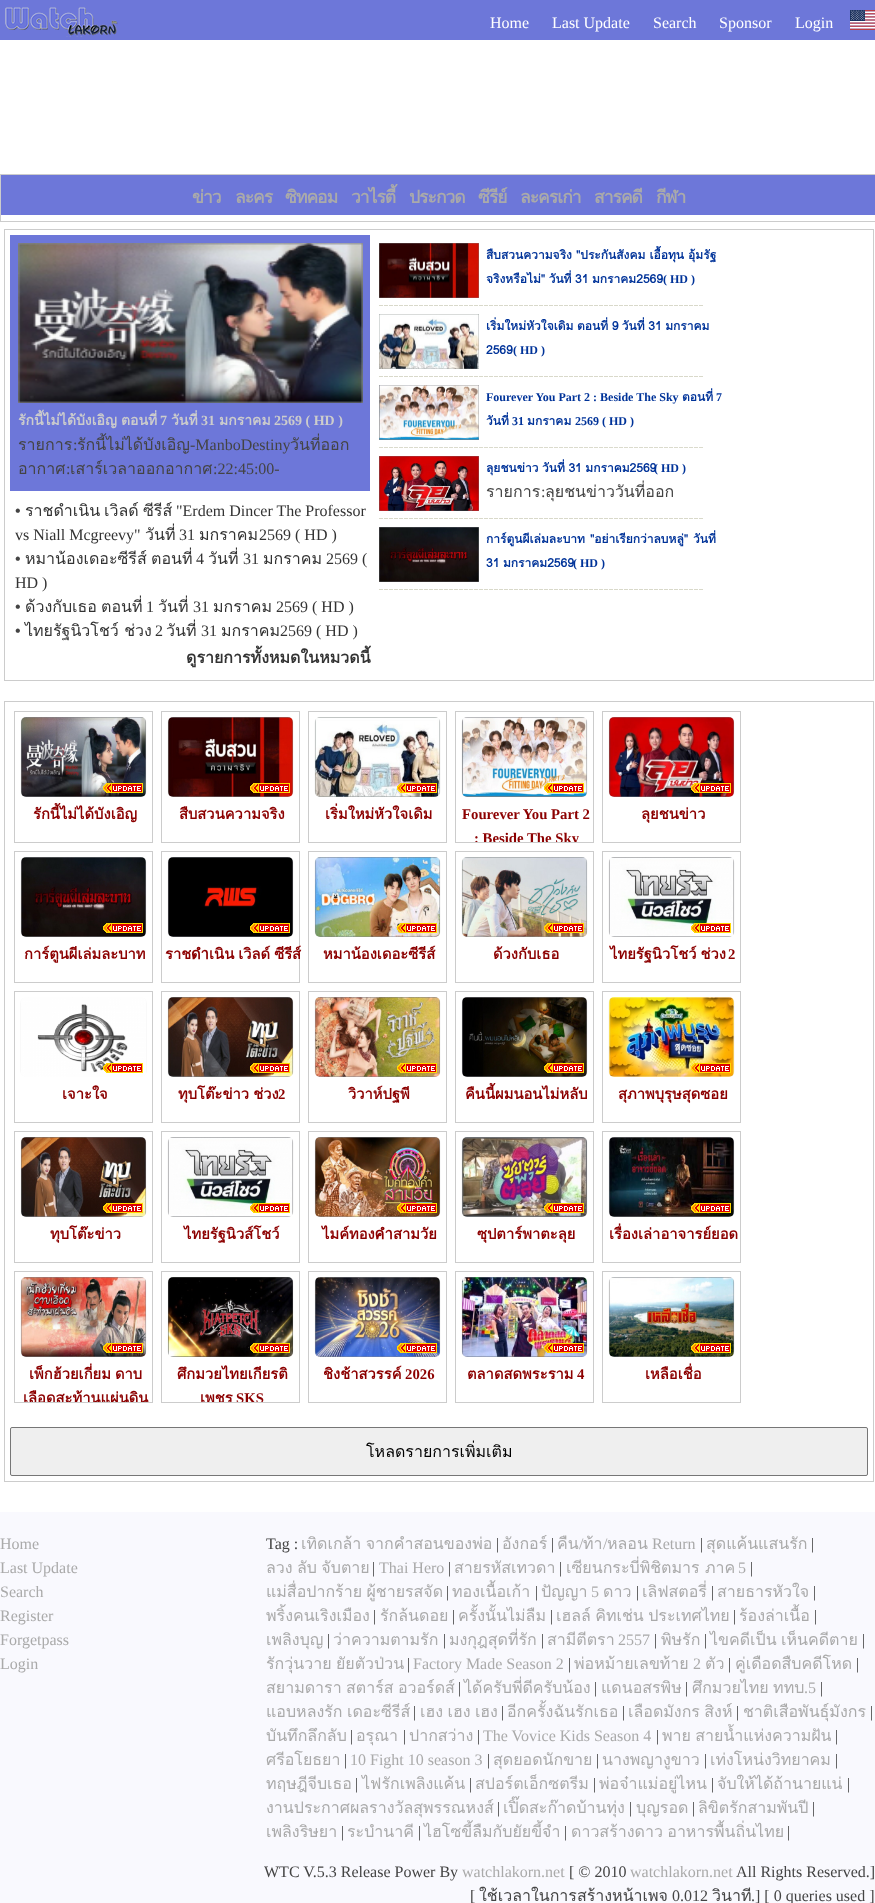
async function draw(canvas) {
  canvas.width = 875;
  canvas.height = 1903;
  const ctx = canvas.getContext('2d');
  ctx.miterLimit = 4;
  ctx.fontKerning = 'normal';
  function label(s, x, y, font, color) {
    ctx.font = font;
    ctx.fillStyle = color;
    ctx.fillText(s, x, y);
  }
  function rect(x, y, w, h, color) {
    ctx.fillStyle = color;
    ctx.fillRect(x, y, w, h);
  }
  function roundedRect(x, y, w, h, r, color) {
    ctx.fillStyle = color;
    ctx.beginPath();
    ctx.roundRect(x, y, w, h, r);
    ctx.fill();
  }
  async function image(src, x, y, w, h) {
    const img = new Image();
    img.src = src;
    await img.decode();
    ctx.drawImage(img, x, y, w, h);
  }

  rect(0, 0, 875, 1903, '#fff');
  rect(0, 0, 875, 40, '#6d77d9');
  await image('assets/img1.png', 5, 7, 113, 30);
  label('Home', 490, 28, '16px Liberation Serif', '#fff');
  label('Last Update', 552, 28, '16px Liberation Serif', '#fff');
  label('Search', 653, 28, '16px Liberation Serif', '#fff');
  label('Sponsor', 719, 28, '16px Liberation Serif', '#fff');
  label('Login', 795, 28, '16px Liberation Serif', '#fff');
  await image('assets/img2.png', 850, 10, 25, 20);
  rect(1, 175, 874, 40, '#6d77d9');
  ctx.strokeStyle = '#ccc';
  ctx.strokeRect(0.5, 174.5, 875, 47);
  ctx.letterSpacing = '-1px';
  label('ข่าว', 192, 203, 'bold 17.5px Loma', '#aaa');
  label('ละคร', 235, 203, 'bold 17.5px Loma', '#aaa');
  label('ซิทคอม', 285, 203, 'bold 17.5px Loma', '#aaa');
  label('วาไรตี้', 351, 203, 'bold 17.5px Loma', '#aaa');
  label('ประกวด', 409, 203, 'bold 17.5px Loma', '#aaa');
  label('ซีรีย์', 478, 203, 'bold 17.5px Loma', '#aaa');
  label('ละครเก่า', 520, 203, 'bold 17.5px Loma', '#aaa');
  label('สารคดี', 594, 203, 'bold 17.5px Loma', '#aaa');
  label('กีฬา', 656, 203, 'bold 17.5px Loma', '#aaa');
  ctx.strokeRect(4.5, 229.5, 869, 451);
  rect(10, 235, 360, 256, '#6d77d9');
  await image('assets/img3.png', 18, 243, 345, 160);
  ctx.letterSpacing = '0px';
  label('รักนี้ไม่ได้บังเอิญ', 18, 425, 'bold 14px Loma', '#ccc');
  label('ตอนที่', 121, 425, 'bold 14px Loma', '#ccc');
  label('7', 160, 425, 'bold 14px Liberation Serif', '#ccc');
  label('วันที่', 171, 425, 'bold 14px Loma', '#ccc');
  label('31', 201, 425, 'bold 14px Liberation Serif', '#ccc');
  label('มกราคม', 219, 425, 'bold 14px Loma', '#ccc');
  label('2569 ( HD )', 274, 425, 'bold 14px Liberation Serif', '#ccc');
  label('รายการ', 18, 450, '16px Loma', '#444');
  label(':', 73, 450, '16px Liberation Serif', '#444');
  label('รักนี้ไม่ได้บังเอิญ', 77, 450, '16px Loma', '#444');
  label('-ManboDestiny', 190, 450, '16px Liberation Serif', '#444');
  label('วันที่ออก', 290, 450, '16px Loma', '#444');
  label('อากาศ', 18, 474, '16px Loma', '#444');
  label(':', 66, 474, '16px Liberation Serif', '#444');
  label('เสาร์เวลาออกอากาศ', 70, 474, '16px Loma', '#444');
  label(':22:45:00-', 213, 474, '16px Liberation Serif', '#444');
  label('•', 15, 516, 'bold 16px Liberation Serif', '#444');
  label('ราชดำเนิน', 25, 516, '16px Loma', '#333');
  label('เวิลด์', 104, 516, '16px Loma', '#333');
  label('ซีรีส์', 143, 516, '16px Loma', '#333');
  label('"Erdem Dincer The Professor', 176, 516, '16px Liberation Serif', '#333');
  label('vs Niall Mcgreevy"', 15, 540, '16px Liberation Serif', '#333');
  label('วันที่', 145, 540, '16px Loma', '#333');
  label('31', 179, 540, '16px Liberation Serif', '#333');
  label('มกราคม', 199, 540, '16px Loma', '#333');
  label('2569 ( HD )', 259, 540, '16px Liberation Serif', '#333');
  label('•', 15, 564, 'bold 16px Liberation Serif', '#444');
  label('หมาน้องเดอะซีรีส์', 25, 564, '16px Loma', '#333');
  label('ตอนที่', 151, 564, '16px Loma', '#333');
  label('4', 196, 564, '16px Liberation Serif', '#333');
  label('วันที่', 208, 564, '16px Loma', '#333');
  label('31', 243, 564, '16px Liberation Serif', '#333');
  label('มกราคม', 263, 564, '16px Loma', '#333');
  label('2569 (', 326, 564, '16px Liberation Serif', '#333');
  label('HD )', 15, 588, '16px Liberation Serif', '#333');
  label('•', 15, 612, 'bold 16px Liberation Serif', '#444');
  label('ด้วงกับเธอ', 25, 612, '16px Loma', '#333');
  label('ตอนที่', 101, 612, '16px Loma', '#333');
  label('1', 146, 612, '16px Liberation Serif', '#333');
  label('วันที่', 158, 612, '16px Loma', '#333');
  label('31', 193, 612, '16px Liberation Serif', '#333');
  label('มกราคม', 213, 612, '16px Loma', '#333');
  label('2569 ( HD )', 276, 612, '16px Liberation Serif', '#333');
  label('•', 15, 636, 'bold 16px Liberation Serif', '#444');
  label('ไทยรัฐนิวโชว์ ช่วง', 25, 636, '16px Loma', '#333');
  label('2', 155, 636, '16px Liberation Serif', '#333');
  label('วันที่', 166, 636, '16px Loma', '#333');
  label('31', 201, 636, '16px Liberation Serif', '#333');
  label('มกราคม', 221, 636, '16px Loma', '#333');
  label('2569 ( HD )', 280, 636, '16px Liberation Serif', '#333');
  label('ดูรายการทั้งหมดในหมวดนี้', 186, 663, 'bold 16px Loma', '#333');
  await image('assets/img4.png', 379, 243, 100, 55);
  label('สืบสวนความจริง "ประกันสังคม เอื้อทุน อุ้มรัฐ', 486, 259, 'bold 12px Loma', '#039');
  ctx.wordSpacing = '-0.5px';
  label('จริงหรือไม่" วันที่ 31 มกราคม2569', 486, 283, 'bold 12px Loma', '#039');
  ctx.wordSpacing = '0px';
  label('( HD )', 663, 283, 'bold 12px Liberation Serif', '#039');
  await image('assets/img5.png', 379, 305, 324, 1);
  await image('assets/img6.png', 379, 314, 100, 55);
  label('เริ่มใหม่หัวใจเดิม', 486, 330, 'bold 12px Loma', '#039');
  ctx.wordSpacing = '-0.5px';
  label('ตอนที่ 9 วันที่ 31 มกราคม', 577, 330, 'bold 12px Loma', '#039');
  ctx.wordSpacing = '0px';
  label('2569', 486, 354, 'bold 12px Loma', '#039');
  label('( HD )', 513, 354, 'bold 12px Liberation Serif', '#039');
  await image('assets/img5.png', 379, 376, 324, 1);
  await image('assets/img7.png', 379, 385, 100, 55);
  label('Fourever You Part 2 : Beside The Sky', 486, 401, 'bold 12px Liberation Serif', '#039');
  label('ตอนที่', 682, 401, 'bold 12px Loma', '#039');
  label('7', 716, 401, 'bold 12px Liberation Serif', '#039');
  label('วันที่', 486, 425, 'bold 12px Loma', '#039');
  label('31', 512, 425, 'bold 12px Liberation Serif', '#039');
  label('มกราคม', 527, 425, 'bold 12px Loma', '#039');
  label('2569 ( HD )', 575, 425, 'bold 12px Liberation Serif', '#039');
  await image('assets/img8.png', 379, 447, 324, 1);
  await image('assets/img9.png', 379, 456, 100, 55);
  label('ลุยชนข่าว', 486, 472, 'bold 12px Loma', '#039');
  ctx.wordSpacing = '-0.5px';
  label('วันที่ 31 มกราคม2569', 542, 472, 'bold 12px Loma', '#039');
  ctx.wordSpacing = '0px';
  label('( HD )', 654, 472, 'bold 12px Liberation Serif', '#039');
  label('รายการ', 486, 497, '16px Loma', '#444');
  label(':', 541, 497, '16px Liberation Serif', '#444');
  label('ลุยชนข่าววันที่ออก', 545, 497, '16px Loma', '#444');
  await image('assets/img5.png', 379, 518, 324, 1);
  await image('assets/img10.png', 379, 527, 100, 55);
  ctx.wordSpacing = '1px';
  label('การ์ตูนผีเล่มละบาท "อย่าเรียกว่าลบหลู่" วันที่', 486, 543, 'bold 12px Loma', '#039');
  ctx.wordSpacing = '-0.5px';
  label('31 มกราคม2569', 486, 567, 'bold 12px Loma', '#039');
  ctx.wordSpacing = '0px';
  label('( HD )', 573, 567, 'bold 12px Liberation Serif', '#039');
  await image('assets/img5.png', 379, 589, 324, 1);
  ctx.strokeRect(4.5, 701.5, 869, 780);
  ctx.strokeRect(14.5, 711.5, 138, 131);
  roundedRect(20, 717, 127, 80, 7, '#f9f9f9');
  await image('assets/img11.png', 21, 717, 125, 80);
  await image('assets/img12.png', 103, 783, 40, 10);
  label('รักนี้ไม่ได้บังเอิญ', 33, 819, 'bold 14.75px Loma', '#8c0000');
  ctx.strokeRect(161.5, 711.5, 138, 131);
  roundedRect(167, 717, 127, 80, 7, '#f9f9f9');
  await image('assets/img13.png', 168, 717, 125, 80);
  await image('assets/img14.png', 250, 783, 40, 10);
  label('สืบสวนความจริง', 179, 819, 'bold 14.75px Loma', '#8c0000');
  ctx.strokeRect(308.5, 711.5, 138, 131);
  roundedRect(314, 717, 127, 80, 7, '#f9f9f9');
  await image('assets/img15.png', 315, 717, 125, 80);
  await image('assets/img16.png', 397, 783, 40, 10);
  label('เริ่มใหม่หัวใจเดิม', 325, 819, 'bold 14.75px Loma', '#8c0000');
  ctx.strokeRect(455.5, 711.5, 138, 131);
  roundedRect(461, 717, 127, 80, 7, '#f9f9f9');
  await image('assets/img17.png', 462, 717, 125, 80);
  await image('assets/img18.png', 544, 783, 40, 10);
  label('Fourever You Part 2', 462, 819, 'bold 14.75px Liberation Serif', '#8c0000');
  ctx.save();
  ctx.beginPath();
  ctx.rect(456, 712, 137, 130);
  ctx.clip();
  label(': Beside The Sky', 474, 843, 'bold 14.75px Liberation Serif', '#8c0000');
  ctx.restore();
  ctx.strokeRect(602.5, 711.5, 138, 131);
  roundedRect(608, 717, 127, 80, 7, '#f9f9f9');
  await image('assets/img19.png', 609, 717, 125, 80);
  await image('assets/img20.png', 691, 783, 40, 10);
  label('ลุยชนข่าว', 641, 819, 'bold 14.75px Loma', '#8c0000');
  ctx.strokeRect(14.5, 851.5, 138, 131);
  roundedRect(20, 857, 127, 80, 7, '#f9f9f9');
  await image('assets/img21.png', 21, 857, 125, 80);
  await image('assets/img22.png', 103, 923, 40, 10);
  label('การ์ตูนผีเล่มละบาท', 24, 959, 'bold 14.75px Loma', '#8c0000');
  ctx.strokeRect(161.5, 851.5, 138, 131);
  roundedRect(167, 857, 127, 80, 7, '#f9f9f9');
  await image('assets/img23.png', 168, 857, 125, 80);
  await image('assets/img24.png', 250, 923, 40, 10);
  ctx.wordSpacing = '-1px';
  label('ราชดำเนิน เวิลด์ ซีรีส์', 165, 959, 'bold 14.75px Loma', '#8c0000');
  ctx.strokeRect(308.5, 851.5, 138, 131);
  roundedRect(314, 857, 127, 80, 7, '#f9f9f9');
  await image('assets/img25.png', 315, 857, 125, 80);
  await image('assets/img26.png', 397, 923, 40, 10);
  ctx.wordSpacing = '0px';
  label('หมาน้องเดอะซีรีส์', 323, 959, 'bold 14.75px Loma', '#8c0000');
  ctx.strokeRect(455.5, 851.5, 138, 131);
  roundedRect(461, 857, 127, 80, 7, '#f9f9f9');
  await image('assets/img27.png', 462, 857, 125, 80);
  await image('assets/img28.png', 544, 923, 40, 10);
  label('ด้วงกับเธอ', 493, 959, 'bold 14.75px Loma', '#8c0000');
  ctx.strokeRect(602.5, 851.5, 138, 131);
  roundedRect(608, 857, 127, 80, 7, '#f9f9f9');
  await image('assets/img29.png', 609, 857, 125, 80);
  await image('assets/img30.png', 691, 923, 40, 10);
  ctx.wordSpacing = '-1px';
  label('ไทยรัฐนิวโชว์ ช่วง', 610, 959, 'bold 14.75px Loma', '#8c0000');
  ctx.wordSpacing = '0px';
  label('2', 728, 959, 'bold 14.75px Liberation Serif', '#8c0000');
  ctx.strokeRect(14.5, 991.5, 138, 131);
  roundedRect(20, 997, 127, 80, 7, '#f9f9f9');
  await image('assets/img31.png', 21, 997, 125, 80);
  await image('assets/img32.png', 103, 1063, 40, 10);
  label('เจาะใจ', 62, 1099, 'bold 14.75px Loma', '#8c0000');
  ctx.strokeRect(161.5, 991.5, 138, 131);
  roundedRect(167, 997, 127, 80, 7, '#f9f9f9');
  await image('assets/img33.png', 168, 997, 125, 80);
  await image('assets/img34.png', 250, 1063, 40, 10);
  ctx.wordSpacing = '-1px';
  label('ทุบโต๊ะข่าว ช่วง', 178, 1099, 'bold 14.75px Loma', '#8c0000');
  ctx.wordSpacing = '0px';
  label('2', 278, 1099, 'bold 14.75px Liberation Serif', '#8c0000');
  ctx.strokeRect(308.5, 991.5, 138, 131);
  roundedRect(314, 997, 127, 80, 7, '#f9f9f9');
  await image('assets/img35.png', 315, 997, 125, 80);
  await image('assets/img36.png', 397, 1063, 40, 10);
  label('วิวาห์ปฐพี', 348, 1099, 'bold 14.75px Loma', '#8c0000');
  ctx.strokeRect(455.5, 991.5, 138, 131);
  roundedRect(461, 997, 127, 80, 7, '#f9f9f9');
  await image('assets/img37.png', 462, 997, 125, 80);
  await image('assets/img38.png', 544, 1063, 40, 10);
  label('คืนนี้ผมนอนไม่หลับ', 465, 1099, 'bold 14.75px Loma', '#8c0000');
  ctx.strokeRect(602.5, 991.5, 138, 131);
  roundedRect(608, 997, 127, 80, 7, '#f9f9f9');
  await image('assets/img39.png', 609, 997, 125, 80);
  await image('assets/img40.png', 691, 1063, 40, 10);
  label('สุภาพบุรุษสุดซอย', 618, 1099, 'bold 14.75px Loma', '#8c0000');
  ctx.strokeRect(14.5, 1131.5, 138, 131);
  roundedRect(20, 1137, 127, 80, 7, '#f9f9f9');
  await image('assets/img41.png', 21, 1137, 125, 80);
  await image('assets/img42.png', 103, 1203, 40, 10);
  label('ทุบโต๊ะข่าว', 50, 1239, 'bold 14.75px Loma', '#8c0000');
  ctx.strokeRect(161.5, 1131.5, 138, 131);
  roundedRect(167, 1137, 127, 80, 7, '#f9f9f9');
  await image('assets/img43.png', 168, 1137, 125, 80);
  await image('assets/img44.png', 250, 1203, 40, 10);
  label('ไทยรัฐนิวส์โชว์', 184, 1239, 'bold 14.75px Loma', '#8c0000');
  ctx.strokeRect(308.5, 1131.5, 138, 131);
  roundedRect(314, 1137, 127, 80, 7, '#f9f9f9');
  await image('assets/img45.png', 315, 1137, 125, 80);
  await image('assets/img46.png', 397, 1203, 40, 10);
  label('ไมค์ทองคำสามวัย', 322, 1239, 'bold 14.75px Loma', '#8c0000');
  ctx.strokeRect(455.5, 1131.5, 138, 131);
  roundedRect(461, 1137, 127, 80, 7, '#f9f9f9');
  await image('assets/img47.png', 462, 1137, 125, 80);
  await image('assets/img48.png', 544, 1203, 40, 10);
  label('ซุปตาร์พาตะลุย', 477, 1239, 'bold 14.75px Loma', '#8c0000');
  ctx.strokeRect(602.5, 1131.5, 138, 131);
  roundedRect(608, 1137, 127, 80, 7, '#f9f9f9');
  await image('assets/img49.png', 609, 1137, 125, 80);
  await image('assets/img50.png', 691, 1203, 40, 10);
  label('เรื่องเล่าอาจารย์ยอด', 609, 1239, 'bold 14.75px Loma', '#8c0000');
  ctx.strokeRect(14.5, 1271.5, 138, 131);
  roundedRect(20, 1277, 127, 80, 7, '#f9f9f9');
  await image('assets/img51.png', 21, 1277, 125, 80);
  await image('assets/img52.png', 103, 1343, 40, 10);
  ctx.wordSpacing = '-1px';
  label('เพ็กฮ้วยเกี่ยม ดาบ', 29, 1379, 'bold 14.75px Loma', '#8c0000');
  ctx.save();
  ctx.beginPath();
  ctx.rect(15, 1272, 137, 130);
  ctx.clip();
  ctx.wordSpacing = '0px';
  label('เลือดสะท้านแผ่นดิน', 23, 1403, 'bold 14.75px Loma', '#8c0000');
  ctx.restore();
  ctx.strokeRect(161.5, 1271.5, 138, 131);
  roundedRect(167, 1277, 127, 80, 7, '#f9f9f9');
  await image('assets/img53.png', 168, 1277, 125, 80);
  await image('assets/img54.png', 250, 1343, 40, 10);
  ctx.wordSpacing = '0px';
  label('ศึกมวยไทยเกียรติ', 177, 1379, 'bold 14.75px Loma', '#8c0000');
  ctx.save();
  ctx.beginPath();
  ctx.rect(162, 1272, 137, 130);
  ctx.clip();
  label('เพชร', 200, 1403, 'bold 14.75px Loma', '#8c0000');
  label('SKS', 236, 1403, 'bold 14.75px Liberation Serif', '#8c0000');
  ctx.restore();
  ctx.strokeRect(308.5, 1271.5, 138, 131);
  roundedRect(314, 1277, 127, 80, 7, '#f9f9f9');
  await image('assets/img55.png', 315, 1277, 125, 80);
  await image('assets/img56.png', 397, 1343, 40, 10);
  label('ชิงช้าสวรรค์', 323, 1379, 'bold 14.75px Loma', '#8c0000');
  label('2026', 405, 1379, 'bold 14.75px Liberation Serif', '#8c0000');
  ctx.strokeRect(455.5, 1271.5, 138, 131);
  roundedRect(461, 1277, 127, 80, 7, '#f9f9f9');
  await image('assets/img57.png', 462, 1277, 125, 80);
  await image('assets/img58.png', 544, 1343, 40, 10);
  label('ตลาดสดพระราม', 467, 1379, 'bold 14.75px Loma', '#8c0000');
  label('4', 577, 1379, 'bold 14.75px Liberation Serif', '#8c0000');
  ctx.strokeRect(602.5, 1271.5, 138, 131);
  roundedRect(608, 1277, 127, 80, 7, '#f9f9f9');
  await image('assets/img59.png', 609, 1277, 125, 80);
  await image('assets/img60.png', 691, 1343, 40, 10);
  label('เหลือเชื่อ', 645, 1379, 'bold 14.75px Loma', '#8c0000');
  ctx.fillStyle = '#efefef';
  ctx.beginPath();
  ctx.roundRect(10.5, 1427.5, 857, 48, 1.5);
  ctx.fill();
  ctx.strokeStyle = '#767676';
  ctx.stroke();
  label('โหลดรายการเพิ่มเติม', 366, 1457, '16px Loma', '#000');
  rect(0, 1512, 875, 391, '#f9f9fe');
  label('Home', 0, 1549, '16px Liberation Serif', '#aaa');
  label('Last Update', 0, 1573, '16px Liberation Serif', '#aaa');
  label('Search', 0, 1597, '16px Liberation Serif', '#aaa');
  label('Register', 0, 1621, '16px Liberation Serif', '#aaa');
  label('Forgetpass', 0, 1645, '16px Liberation Serif', '#aaa');
  label('Login', 0, 1669, '16px Liberation Serif', '#aaa');
  label('Tag :', 266, 1549, '16px Liberation Serif', '#444');
  ctx.wordSpacing = '-1px';
  label('เทิดเกล้า จากคำสอนของพ่อ', 301, 1549, '16px Loma', '#aaa');
  ctx.wordSpacing = '0px';
  label('|', 496, 1549, '16px Liberation Serif', '#444');
  label('อังกอร์', 502, 1549, '16px Loma', '#aaa');
  label('|', 551, 1549, '16px Liberation Serif', '#444');
  label('คืน', 557, 1549, '16px Loma', '#aaa');
  label('/', 579, 1549, '16px Liberation Serif', '#aaa');
  label('ท้า', 583, 1549, '16px Loma', '#aaa');
  label('|', 700, 1549, '16px Liberation Serif', '#444');
  label('/', 603, 1549, '16px Liberation Serif', '#aaa');
  label('หลอน', 607, 1549, '16px Loma', '#aaa');
  label('Return', 652, 1549, '16px Liberation Serif', '#aaa');
  label('สุดแค้นแสนรัก', 706, 1549, '16px Loma', '#aaa');
  label('|', 811, 1549, '16px Liberation Serif', '#444');
  ctx.wordSpacing = '-1px';
  label('ลวง ลับ จับตาย', 266, 1573, '16px Loma', '#aaa');
  ctx.wordSpacing = '0px';
  label('|', 372, 1573, '16px Liberation Serif', '#444');
  label('Thai Hero', 379, 1573, '16px Liberation Serif', '#aaa');
  label('|', 448, 1573, '16px Liberation Serif', '#444');
  label('สายรหัสเทวดา', 454, 1573, '16px Loma', '#aaa');
  label('|', 559, 1573, '16px Liberation Serif', '#444');
  label('เซียนกระบี่พิชิตมาร ภาค', 566, 1573, '16px Loma', '#aaa');
  label('5', 738, 1573, '16px Liberation Serif', '#aaa');
  label('|', 750, 1573, '16px Liberation Serif', '#444');
  ctx.wordSpacing = '-1px';
  label('แม่สื่อปากร้าย ผู้ชายรสจัด', 266, 1597, '16px Loma', '#aaa');
  ctx.wordSpacing = '0px';
  label('|', 446, 1597, '16px Liberation Serif', '#444');
  label('ทองเนื้อเก้า', 452, 1597, '16px Loma', '#aaa');
  label('|', 535, 1597, '16px Liberation Serif', '#444');
  label('ปัญญา', 541, 1597, '16px Loma', '#aaa');
  label('5', 591, 1597, '16px Liberation Serif', '#aaa');
  label('ดาว', 603, 1597, '16px Loma', '#aaa');
  label('|', 636, 1597, '16px Liberation Serif', '#444');
  label('เลิฟสตอรี่', 642, 1597, '16px Loma', '#aaa');
  label('|', 711, 1597, '16px Liberation Serif', '#444');
  label('สายธารหัวใจ', 717, 1597, '16px Loma', '#aaa');
  label('|', 813, 1597, '16px Liberation Serif', '#444');
  label('พริ้งคนเริงเมือง', 266, 1621, '16px Loma', '#aaa');
  label('|', 373, 1621, '16px Liberation Serif', '#444');
  label('รักล้นดอย', 380, 1621, '16px Loma', '#aaa');
  label('|', 452, 1621, '16px Liberation Serif', '#444');
  label('ครั้งนั้นไม่ลืม', 458, 1621, '16px Loma', '#aaa');
  label('|', 550, 1621, '16px Liberation Serif', '#444');
  ctx.wordSpacing = '-1px';
  label('เฮลล์ คิทเช่น ประเทศไทย', 556, 1621, '16px Loma', '#aaa');
  ctx.wordSpacing = '0px';
  label('|', 733, 1621, '16px Liberation Serif', '#444');
  label('ร้องล่าเนื้อ', 739, 1621, '16px Loma', '#aaa');
  label('|', 814, 1621, '16px Liberation Serif', '#444');
  label('เพลิงบุญ', 266, 1645, '16px Loma', '#aaa');
  label('|', 327, 1645, '16px Liberation Serif', '#444');
  label('ว่าความตามรัก', 333, 1645, '16px Loma', '#aaa');
  label('|', 443, 1645, '16px Liberation Serif', '#444');
  label('มงกุฎสุดที่รัก', 449, 1645, '16px Loma', '#aaa');
  label('|', 541, 1645, '16px Liberation Serif', '#444');
  label('สามีตีตรา', 547, 1645, '16px Loma', '#aaa');
  label('2557', 618, 1645, '16px Liberation Serif', '#aaa');
  label('|', 654, 1645, '16px Liberation Serif', '#444');
  label('พิษรัก', 661, 1645, '16px Loma', '#aaa');
  label('|', 704, 1645, '16px Liberation Serif', '#444');
  ctx.wordSpacing = '-1px';
  label('ไขคดีเป็น เห็นคดีตาย', 710, 1645, '16px Loma', '#aaa');
  ctx.wordSpacing = '0px';
  label('|', 862, 1645, '16px Liberation Serif', '#444');
  ctx.wordSpacing = '-1px';
  label('รักวุ่นวาย ยัยตัวป่วน', 266, 1669, '16px Loma', '#aaa');
  ctx.wordSpacing = '0px';
  label('|', 407, 1669, '16px Liberation Serif', '#444');
  label('Factory Made Season 2', 413, 1669, '16px Liberation Serif', '#aaa');
  label('|', 568, 1669, '16px Liberation Serif', '#444');
  label('พ่อหม้ายเลขท้าย', 574, 1669, '16px Loma', '#aaa');
  label('2', 693, 1669, '16px Liberation Serif', '#aaa');
  label('ตัว', 705, 1669, '16px Loma', '#aaa');
  label('|', 728, 1669, '16px Liberation Serif', '#444');
  label('คู่เดือดสืบคดีโหด', 735, 1669, '16px Loma', '#aaa');
  label('|', 856, 1669, '16px Liberation Serif', '#444');
  ctx.wordSpacing = '-1px';
  label('สยามดารา สตาร์ส อวอร์ดส์', 266, 1693, '16px Loma', '#aaa');
  ctx.wordSpacing = '0px';
  label('|', 458, 1693, '16px Liberation Serif', '#444');
  label('ได้ครับพี่ดีครับน้อง', 464, 1693, '16px Loma', '#aaa');
  label('|', 594, 1693, '16px Liberation Serif', '#444');
  label('แดนอสรพิษ', 601, 1693, '16px Loma', '#aaa');
  label('|', 685, 1693, '16px Liberation Serif', '#444');
  ctx.wordSpacing = '-1px';
  label('ศึกมวยไทย ททบ', 692, 1693, '16px Loma', '#aaa');
  ctx.wordSpacing = '0px';
  label('.5', 804, 1693, '16px Liberation Serif', '#aaa');
  label('|', 820, 1693, '16px Liberation Serif', '#444');
  ctx.wordSpacing = '-1px';
  label('แอบหลงรัก เดอะซีรีส์', 266, 1717, '16px Loma', '#aaa');
  ctx.wordSpacing = '0px';
  label('|', 413, 1717, '16px Liberation Serif', '#444');
  ctx.wordSpacing = '-1px';
  label('เฮง เฮง เฮง', 420, 1717, '16px Loma', '#aaa');
  ctx.wordSpacing = '0px';
  label('|', 501, 1717, '16px Liberation Serif', '#444');
  label('อีกครั้งฉันรักเธอ', 507, 1717, '16px Loma', '#aaa');
  label('|', 622, 1717, '16px Liberation Serif', '#444');
  ctx.wordSpacing = '-1px';
  label('เลือดมังกร สิงห์', 628, 1717, '16px Loma', '#aaa');
  ctx.wordSpacing = '0px';
  label('|', 736, 1717, '16px Liberation Serif', '#444');
  label('ชาติเสือพันธุ์มังกร', 743, 1717, '16px Loma', '#aaa');
  label('|', 870, 1717, '16px Liberation Serif', '#444');
  label('บันทึกลึกลับ', 266, 1741, '16px Loma', '#aaa');
  label('|', 350, 1741, '16px Liberation Serif', '#444');
  label('อรุณา', 356, 1741, '16px Loma', '#aaa');
  label('|', 403, 1741, '16px Liberation Serif', '#444');
  label('ปากสว่าง', 409, 1741, '16px Loma', '#aaa');
  label('|', 477, 1741, '16px Liberation Serif', '#444');
  label('The Vovice Kids Season 4', 483, 1741, '16px Liberation Serif', '#aaa');
  label('|', 656, 1741, '16px Liberation Serif', '#444');
  ctx.wordSpacing = '-1px';
  label('พาย สายน้ำแห่งความฝัน', 662, 1741, '16px Loma', '#aaa');
  ctx.wordSpacing = '0px';
  label('|', 835, 1741, '16px Liberation Serif', '#444');
  label('ศรีอโยธยา', 266, 1765, '16px Loma', '#aaa');
  label('|', 344, 1765, '16px Liberation Serif', '#444');
  label('10 Fight 10 season 3', 350, 1765, '16px Liberation Serif', '#aaa');
  label('|', 487, 1765, '16px Liberation Serif', '#444');
  label('สุดยอดนักขาย', 493, 1765, '16px Loma', '#aaa');
  label('|', 596, 1765, '16px Liberation Serif', '#444');
  label('นางพญางูขาว', 602, 1765, '16px Loma', '#aaa');
  label('|', 704, 1765, '16px Liberation Serif', '#444');
  label('เท่งโหน่งวิทยาคม', 710, 1765, '16px Loma', '#aaa');
  label('|', 835, 1765, '16px Liberation Serif', '#444');
  label('ทฤษฎีจีบเธอ', 266, 1789, '16px Loma', '#aaa');
  label('|', 355, 1789, '16px Liberation Serif', '#444');
  label('ไฟรักเพลิงแค้น', 362, 1789, '16px Loma', '#aaa');
  label('|', 469, 1789, '16px Liberation Serif', '#444');
  label('สปอร์ตเอ็กซตรีม', 475, 1789, '16px Loma', '#aaa');
  label('|', 593, 1789, '16px Liberation Serif', '#444');
  label('พ่อจ๋าแม่อยู่ไหน', 599, 1789, '16px Loma', '#aaa');
  label('|', 711, 1789, '16px Liberation Serif', '#444');
  label('จับให้ได้ถ้านายแน่', 717, 1789, '16px Loma', '#aaa');
  label('|', 847, 1789, '16px Liberation Serif', '#444');
  label('งานประกาศผลรางวัลสุพรรณหงส์', 266, 1813, '16px Loma', '#aaa');
  label('|', 497, 1813, '16px Liberation Serif', '#444');
  label('เปิ๊ดสะก๊าดบ้านทุ่ง', 503, 1813, '16px Loma', '#aaa');
  label('|', 629, 1813, '16px Liberation Serif', '#444');
  label('บุญรอด', 636, 1813, '16px Loma', '#aaa');
  label('|', 692, 1813, '16px Liberation Serif', '#444');
  label('ลิขิตรักสามพันปี', 698, 1813, '16px Loma', '#aaa');
  label('|', 812, 1813, '16px Liberation Serif', '#444');
  label('เพลิงริษยา', 266, 1837, '16px Loma', '#aaa');
  label('|', 341, 1837, '16px Liberation Serif', '#444');
  label('ระบำนาคี', 347, 1837, '16px Loma', '#aaa');
  label('|', 418, 1837, '16px Liberation Serif', '#444');
  label('ไฮโซขี้ลืมกับยัยขี้จำ', 424, 1837, '16px Loma', '#aaa');
  label('|', 564, 1837, '16px Liberation Serif', '#444');
  ctx.wordSpacing = '-1px';
  label('ดาวสร้างดาว อาหารพื้นถิ่นไทย', 571, 1837, '16px Loma', '#aaa');
  ctx.wordSpacing = '0px';
  label('|', 787, 1837, '16px Liberation Serif', '#444');
  label('WTC V.5.3 Release Power By', 264, 1877, '16px Liberation Serif', '#444');
  label('watchlakorn.net', 462, 1877, '16px Liberation Serif', '#aaa');
  label('[ © 2010', 569, 1877, '16px Liberation Serif', '#444');
  label('watchlakorn.net', 630, 1877, '16px Liberation Serif', '#aaa');
  label('All Rights Reserved.]', 736, 1877, '16px Liberation Serif', '#444');
  label('[', 470, 1901, '16px Liberation Serif', '#444');
  label('ใช้เวลาในการสร้างหน้าเพจ', 479, 1901, '16px Loma', '#444');
  label('0.012', 672, 1901, '16px Liberation Serif', '#444');
  label('วินาที', 712, 1901, '16px Loma', '#444');
  label('.] [ 0 queries used ]', 751, 1901, '16px Liberation Serif', '#444');
}

draw(document.querySelector('canvas'));
